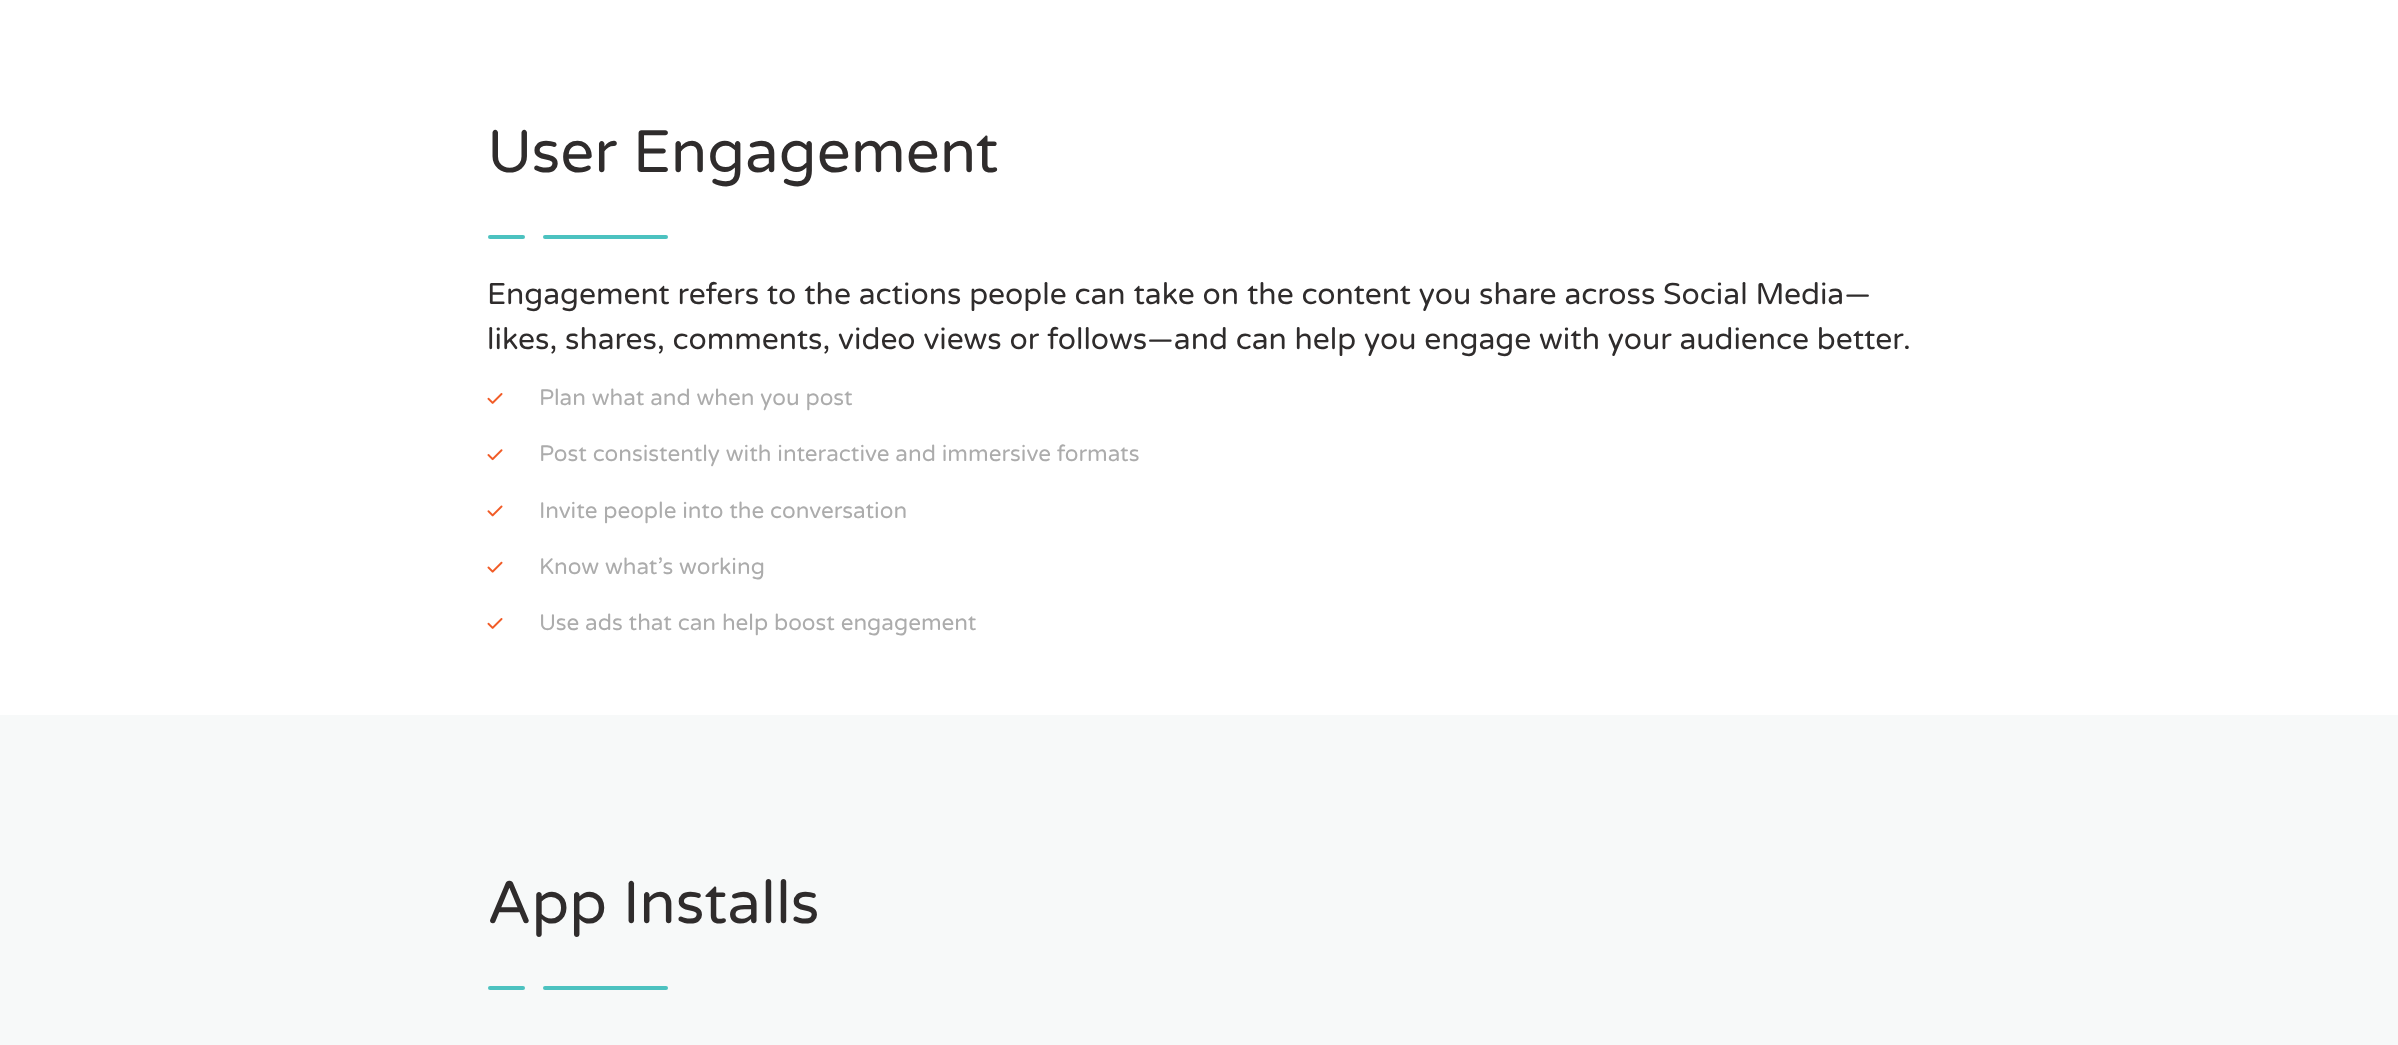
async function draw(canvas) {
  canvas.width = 2398;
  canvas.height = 1045;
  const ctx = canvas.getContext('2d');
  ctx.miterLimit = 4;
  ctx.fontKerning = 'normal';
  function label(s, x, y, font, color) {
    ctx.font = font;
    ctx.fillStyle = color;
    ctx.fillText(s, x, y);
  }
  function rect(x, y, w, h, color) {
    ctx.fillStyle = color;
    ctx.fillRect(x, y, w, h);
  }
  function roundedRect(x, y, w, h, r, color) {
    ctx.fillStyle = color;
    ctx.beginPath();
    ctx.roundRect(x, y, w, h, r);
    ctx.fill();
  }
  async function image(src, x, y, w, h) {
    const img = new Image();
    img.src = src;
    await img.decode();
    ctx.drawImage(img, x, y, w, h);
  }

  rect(0, 0, 2398, 1045, '#fff');
  label('User Engagement', 487, 172, '60px Varela Round', '#2f2c2c');
  roundedRect(488, 235, 37, 4, 2, '#4cc2c0');
  roundedRect(543, 235, 125, 4, 2, '#4cc2c0');
  label('Engagement refers to the actions people can take on the content you share across Social Media—', 487, 304, '30px Varela Round', '#2f2c2c');
  label('likes, shares, comments, video views or follows—and can help you engage with your audience better.', 487, 349, '30px Varela Round', '#2f2c2c');
  await image('assets/img1.png', 487, 393, 16, 11);
  label('Plan what and when you post', 539, 405, '22.5px Varela Round', '#acacac');
  await image('assets/img2.png', 487, 449, 16, 12);
  label('Post consistently with interactive and immersive formats', 539, 461, '22.5px Varela Round', '#acacac');
  await image('assets/img3.png', 487, 505, 16, 12);
  label('Invite people into the conversation', 539, 518, '22.5px Varela Round', '#acacac');
  await image('assets/img4.png', 487, 561, 16, 12);
  label('Know what’s working', 539, 574, '22.5px Varela Round', '#acacac');
  await image('assets/img1.png', 487, 618, 16, 11);
  label('Use ads that can help boost engagement', 539, 630, '22.5px Varela Round', '#acacac');
  rect(0, 715, 2398, 330, '#f7f9f9');
  label('App Installs', 487, 923, '60px Varela Round', '#2f2c2c');
  roundedRect(488, 986, 37, 4, 2, '#4cc2c0');
  roundedRect(543, 986, 125, 4, 2, '#4cc2c0');
}

draw(document.querySelector('canvas'));
